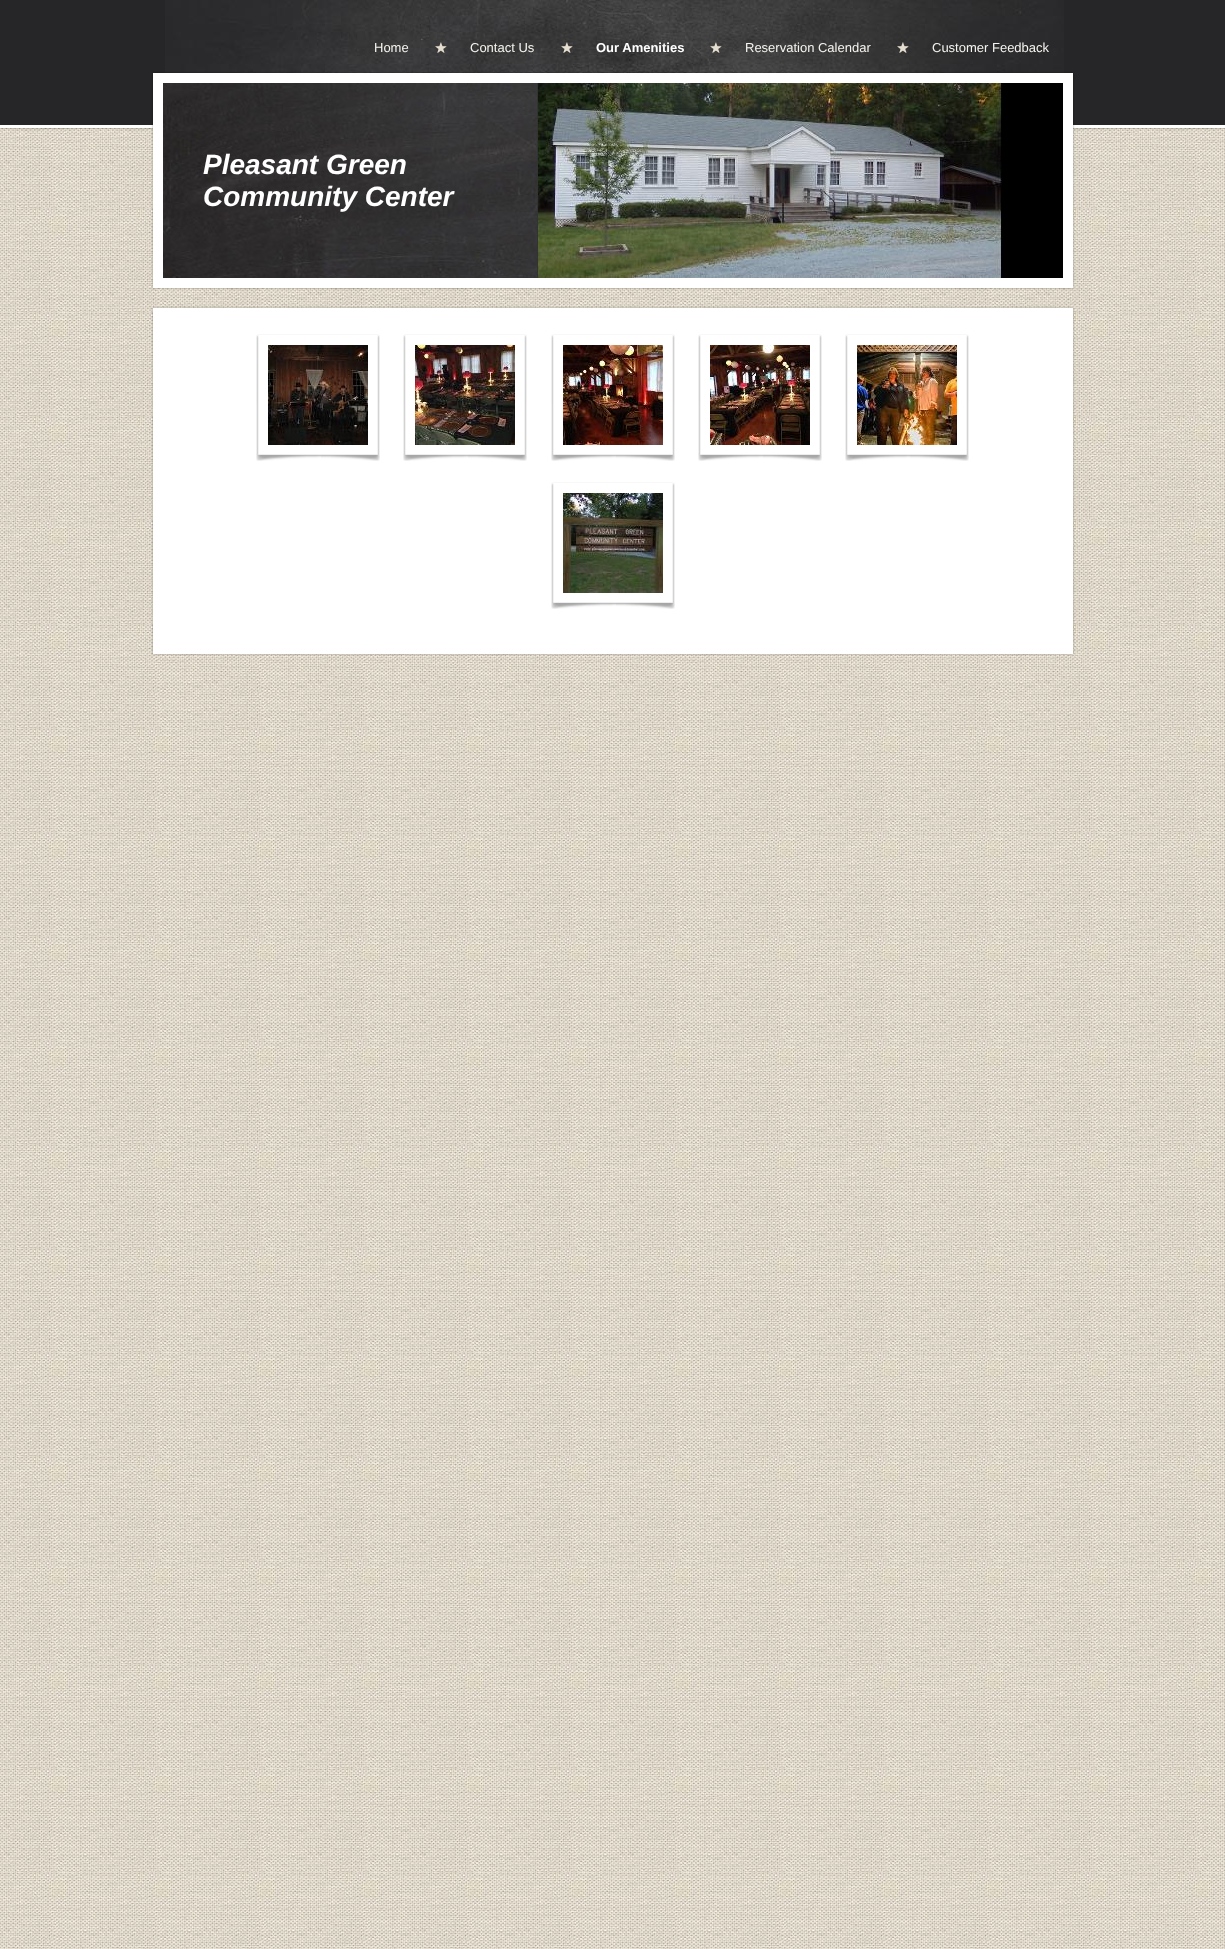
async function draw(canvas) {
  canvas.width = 1225;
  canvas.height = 1949;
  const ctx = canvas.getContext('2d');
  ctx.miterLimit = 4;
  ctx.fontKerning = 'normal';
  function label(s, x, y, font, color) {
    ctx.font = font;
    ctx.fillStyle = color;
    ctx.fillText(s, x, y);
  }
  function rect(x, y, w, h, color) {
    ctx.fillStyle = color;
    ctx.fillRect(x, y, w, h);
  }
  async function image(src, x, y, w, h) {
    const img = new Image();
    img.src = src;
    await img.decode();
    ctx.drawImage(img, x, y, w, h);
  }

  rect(0, 0, 1225, 1949, '#fff');
  await image('assets/img1.png', 0, 128, 1225, 1821);
  ctx.fillStyle = '#00000073';
  ctx.filter = 'blur(1px)';
  ctx.beginPath();
  ctx.rect(0, 0, 1225, 128);
  ctx.fill();
  ctx.filter = 'none';
  rect(0, 0, 1225, 125, '#262628');
  await image('assets/img2.png', 165, 0, 899, 73);
  rect(0, 125, 1225, 3, '#fff');
  label('Home', 374, 52, '13px Liberation Sans', '#f6f4ee');
  await image('assets/img3.png', 435, 42, 12, 11);
  label('Contact Us', 470, 52, '13px Liberation Sans', '#f6f4ee');
  await image('assets/img4.png', 561, 42, 12, 11);
  label('Our Amenities', 596, 52, 'bold 13px Liberation Sans', '#fff');
  await image('assets/img5.png', 710, 42, 12, 11);
  label('Reservation Calendar', 745, 52, '13px Liberation Sans', '#f6f4ee');
  await image('assets/img6.png', 897, 42, 12, 11);
  label('Customer Feedback', 932, 52, '13px Liberation Sans', '#f6f4ee');
  ctx.fillStyle = '#00000059';
  ctx.filter = 'blur(1px)';
  ctx.beginPath();
  ctx.rect(153, 73, 920, 215);
  ctx.fill();
  ctx.filter = 'none';
  rect(153, 73, 920, 215, '#fff');
  await image('assets/img7.png', 163, 83, 374, 195);
  rect(537, 83, 1, 195, '#333');
  label('Pleasant Green', 203, 174, 'italic bold 28px Liberation Sans', '#fff');
  label('Community Center', 203, 206, 'italic bold 28px Liberation Sans', '#fff');
  await image('assets/img8.png', 538, 83, 525, 195);
  ctx.fillStyle = '#00000059';
  ctx.filter = 'blur(1px)';
  ctx.beginPath();
  ctx.rect(153, 308, 920, 346);
  ctx.fill();
  ctx.filter = 'none';
  rect(153, 308, 920, 346, '#fff');
  await image('assets/img9.png', 256, 334, 124, 127);
  await image('assets/img10.png', 268, 345, 100, 100);
  await image('assets/img9.png', 403, 334, 124, 127);
  await image('assets/img11.png', 415, 345, 100, 100);
  await image('assets/img9.png', 551, 334, 124, 127);
  await image('assets/img12.png', 563, 345, 100, 100);
  await image('assets/img9.png', 698, 334, 124, 127);
  await image('assets/img13.png', 710, 345, 100, 100);
  await image('assets/img9.png', 845, 334, 124, 127);
  await image('assets/img14.png', 857, 345, 100, 100);
  await image('assets/img9.png', 551, 482, 124, 127);
  await image('assets/img15.png', 563, 493, 100, 100);
}

draw(document.querySelector('canvas'));
